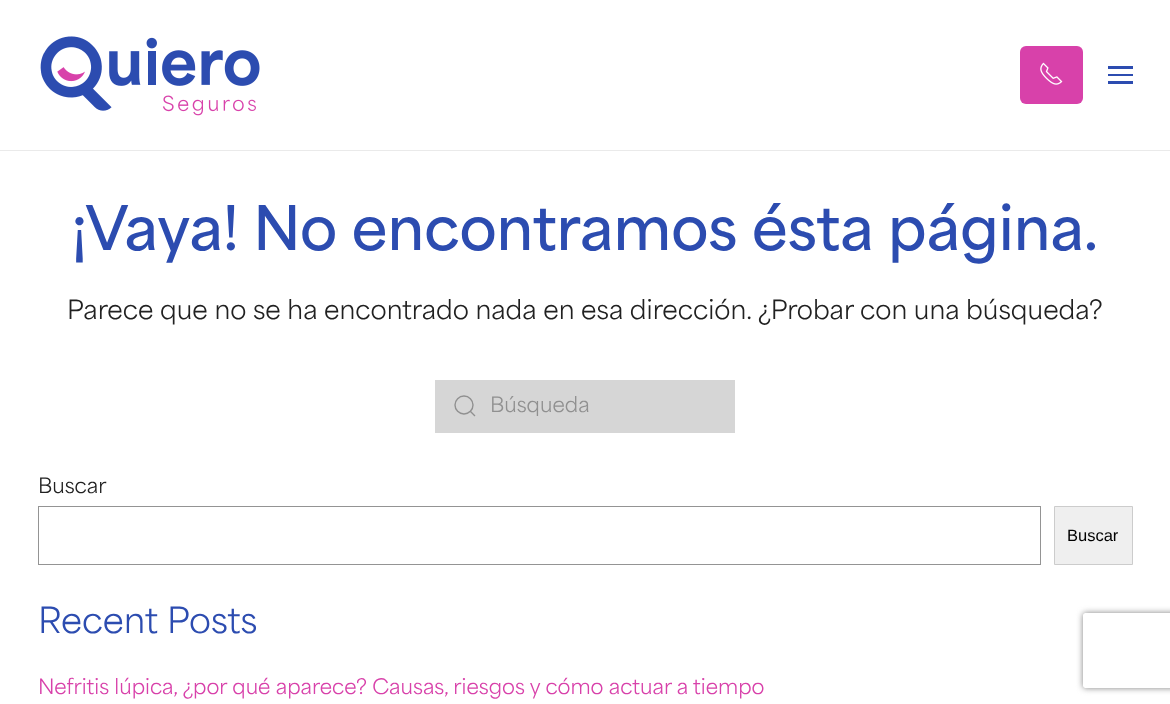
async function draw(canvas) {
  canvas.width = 1170;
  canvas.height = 704;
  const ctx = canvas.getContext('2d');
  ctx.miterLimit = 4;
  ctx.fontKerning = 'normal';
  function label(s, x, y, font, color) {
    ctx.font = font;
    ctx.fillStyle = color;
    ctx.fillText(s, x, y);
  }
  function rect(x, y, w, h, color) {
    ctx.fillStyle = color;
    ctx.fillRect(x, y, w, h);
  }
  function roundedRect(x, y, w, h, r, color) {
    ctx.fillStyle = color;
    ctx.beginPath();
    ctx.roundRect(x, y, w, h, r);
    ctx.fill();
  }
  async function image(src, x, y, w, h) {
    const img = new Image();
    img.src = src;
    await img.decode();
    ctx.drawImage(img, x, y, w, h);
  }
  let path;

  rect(0, 0, 1170, 704, '#fff');
  rect(0, 150, 1170, 1, '#eaeaea');
  await image('assets/img1.png', 40, 36, 220, 80);
  roundedRect(1020, 46, 63, 58, 6, '#d841aa');
  await image('assets/img2.png', 1040, 62, 23, 23);
  rect(1108, 66, 25, 3, '#2c4cb0');
  rect(1108, 74, 25, 2, '#2c4cb0');
  rect(1108, 81, 25, 3, '#2c4cb0');
  label('¡Vaya! No encontramos ésta página.', 72, 250, '600 57.75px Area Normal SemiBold', '#2c4cb0');
  label('Parece que no se ha encontrado nada en esa dirección. ¿Probar con una búsqueda?', 67, 319, '25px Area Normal', '#212121');
  rect(435, 380, 300, 53, '#d6d6d6');
  ctx.beginPath();
  ctx.arc(464, 405, 9, 0, 2 * Math.PI);
  ctx.strokeStyle = '#909090';
  ctx.lineWidth = 1.4;
  ctx.stroke();
  path = new Path2D('M470 411L475 416Z');
  ctx.stroke(path);
  ctx.save();
  ctx.beginPath();
  ctx.rect(490, 396, 223, 20);
  ctx.clip();
  label('Búsqueda', 490, 412, '20px Area Normal', '#909090');
  ctx.restore();
  label('Buscar', 38, 493, '20px Area Normal', '#212121');
  ctx.strokeStyle = '#949494';
  ctx.lineWidth = 1;
  ctx.strokeRect(38.5, 506.5, 1002, 58);
  ctx.fillStyle = '#efefef';
  ctx.beginPath();
  ctx.rect(1054.5, 506.5, 78, 58);
  ctx.fill();
  ctx.strokeStyle = '#ccc';
  ctx.stroke();
  label('Buscar', 1067, 541, '16.5px Liberation Sans', '#000');
  label('Recent Posts', 38, 633, '34px Area Normal', '#2c4cb0');
  label('Nefritis lúpica, ¿por qué aparece? Causas, riesgos y cómo actuar a tiempo', 38, 694, '20px Area Normal', '#d841aa');
  ctx.save();
  path = new Path2D('M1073 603H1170V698H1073ZM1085.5 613H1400.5C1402 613 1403 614 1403 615.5V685.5C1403 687 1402 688 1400.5 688H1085.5C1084 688 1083 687 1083 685.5V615.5C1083 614 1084 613 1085.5 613Z');
  ctx.clip(path, 'evenodd');
  ctx.fillStyle = '#808080';
  ctx.filter = 'blur(3px)';
  ctx.beginPath();
  ctx.roundRect(1083, 613, 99, 75, 2.5);
  ctx.fill();
  ctx.filter = 'none';
  ctx.restore();
}

draw(document.querySelector('canvas'));
